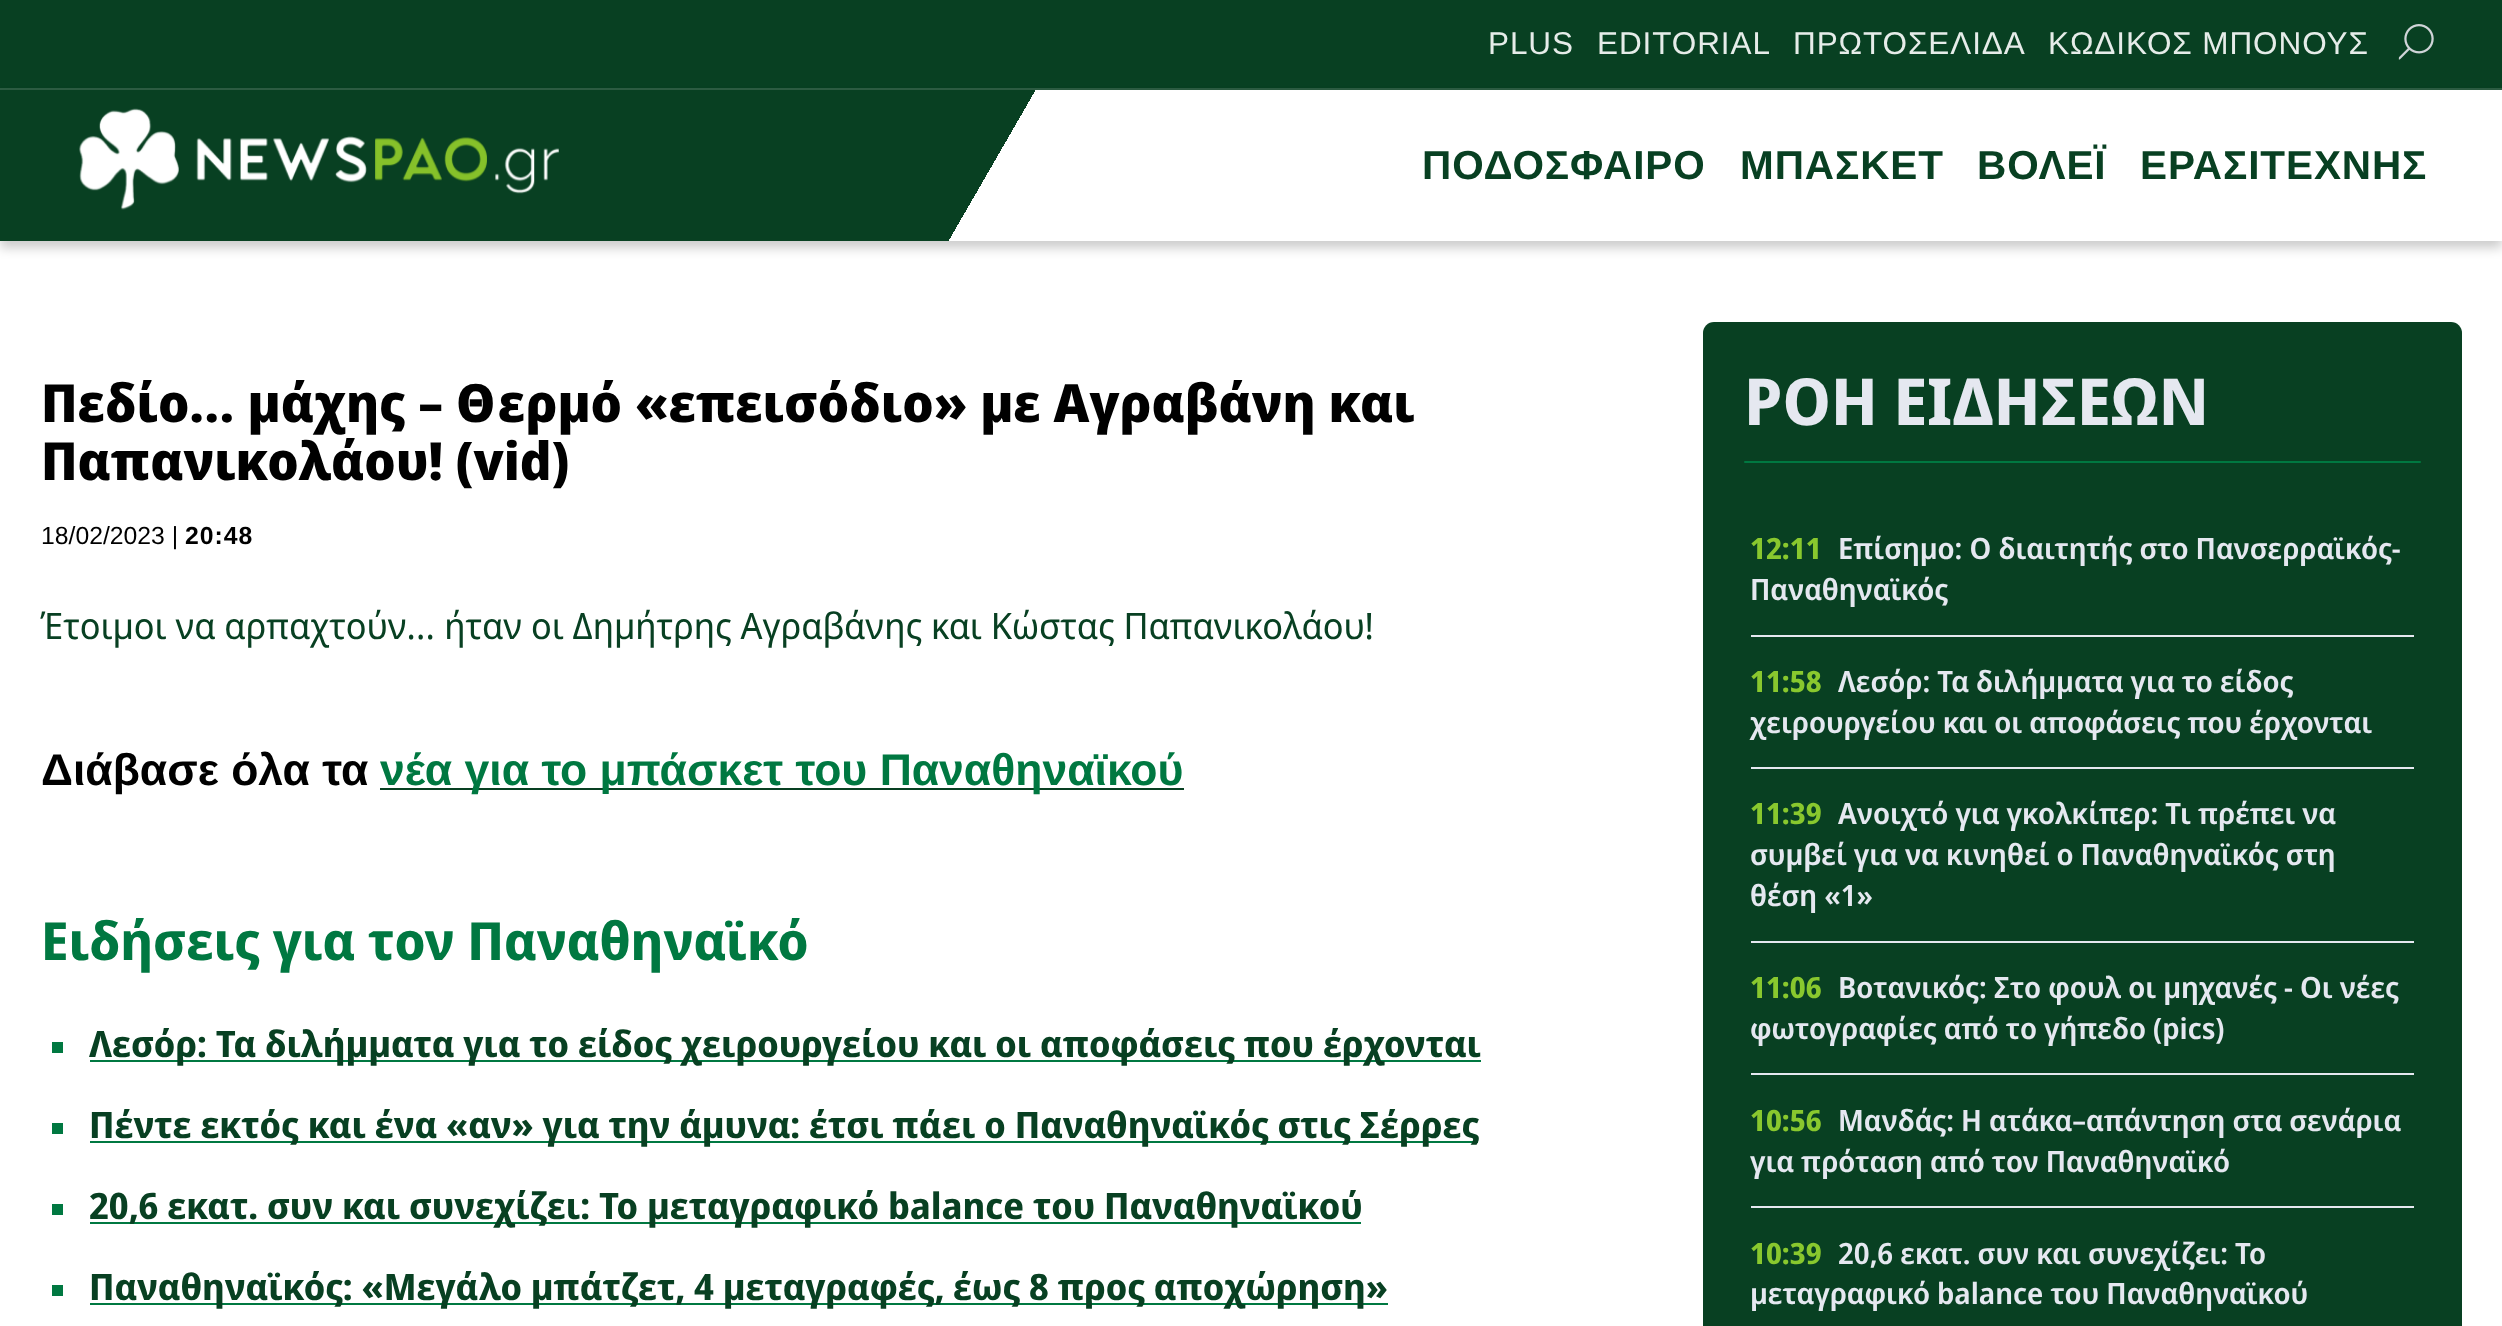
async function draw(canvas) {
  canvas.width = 2502;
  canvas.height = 1326;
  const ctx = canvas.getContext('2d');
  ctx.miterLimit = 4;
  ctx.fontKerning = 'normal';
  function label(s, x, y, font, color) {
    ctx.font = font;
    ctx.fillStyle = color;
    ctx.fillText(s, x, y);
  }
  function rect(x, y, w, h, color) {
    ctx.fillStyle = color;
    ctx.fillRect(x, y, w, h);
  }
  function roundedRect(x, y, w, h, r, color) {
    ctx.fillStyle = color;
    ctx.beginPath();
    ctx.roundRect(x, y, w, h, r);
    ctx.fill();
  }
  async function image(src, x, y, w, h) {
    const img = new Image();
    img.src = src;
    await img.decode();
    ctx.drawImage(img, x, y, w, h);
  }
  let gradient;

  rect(0, 0, 2502, 1326, '#fff');
  rect(0, 0, 2502, 88, '#084022');
  rect(0, 88, 2502, 2, '#2d5d43');
  ctx.letterSpacing = '0.9px';
  label('PLUS', 1488, 54, '31.5px Liberation Sans', '#e6ece9');
  label('EDITORIAL', 1597, 54, '31.5px Liberation Sans', '#e6ece9');
  label('ΠΡΩΤΟΣΕΛΙΔΑ', 1793, 54, '31.5px Liberation Sans', '#e6ece9');
  label('ΚΩΔΙΚΟΣ ΜΠΟΝΟΥΣ', 2048, 54, '31.5px Liberation Sans', '#e6ece9');
  await image('assets/img1.png', 2398, 24, 36, 36);
  ctx.fillStyle = '#00000033';
  ctx.filter = 'blur(5.5px)';
  ctx.beginPath();
  ctx.rect(0, 97, 2502, 151);
  ctx.fill();
  ctx.filter = 'none';
  gradient = ctx.createLinearGradient(280, -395, 2222, 726);
  gradient.addColorStop(0.4, '#084022');
  gradient.addColorStop(0.4, '#fff');
  ctx.fillStyle = gradient;
  ctx.fillRect(0, 90, 2502, 151);
  await image('assets/img2.png', 79, 108, 480, 102);
  label('ΠΟΔΟΣΦΑΙΡΟ', 1422, 179, 'bold 40.5px Liberation Sans', '#084022');
  label('ΜΠΑΣΚΕΤ', 1740, 179, 'bold 40.5px Liberation Sans', '#084022');
  label('ΒΟΛΕΪ', 1977, 179, 'bold 40.5px Liberation Sans', '#084022');
  label('ΕΡΑΣΙΤΕΧΝΗΣ', 2140, 179, 'bold 40.5px Liberation Sans', '#084022');
  ctx.letterSpacing = '0px';
  label('Πεδίο… μάχης – Θερμό «επεισόδιο» με Αγραβάνη και', 41, 422, '800 52.65px Noto Sans Display', '#000');
  label('Παπανικολάου! (vid)', 41, 480, '800 52.65px Noto Sans Display', '#000');
  label('18/02/2023 |', 41, 544, '24.75px Liberation Sans', '#000');
  ctx.letterSpacing = '1px';
  label('20:48', 185, 544, 'bold 24.75px Liberation Sans', '#000');
  ctx.letterSpacing = '0px';
  label('Έτοιμοι να αρπαχτούν… ήταν οι Δημήτρης Αγραβάνης και Κώστας Παπανικολάου!', 41, 639, '36.45px Noto Sans Display', '#084022');
  label('Διάβασε όλα τα', 41, 785, 'bold 44.5px Liberation Sans', '#000');
  rect(380, 788, 804, 2, '#084022');
  label('νέα για το μπάσκετ του Παναθηναϊκού', 380, 785, 'bold 44.5px Liberation Sans', '#007841');
  label('Ειδήσεις για τον Παναθηναϊκό', 41, 960, 'bold 52.65px Noto Sans Display', '#007841');
  rect(52, 1042, 11, 11, '#007841');
  rect(90, 1060, 1391, 2, '#007841');
  label('Λεσόρ: Τα διλήμματα για το είδος χειρουργείου και οι αποφάσεις που έρχονται', 89, 1057, 'bold 36.45px Noto Sans Display', '#084022');
  rect(52, 1123, 11, 11, '#007841');
  rect(90, 1141, 1388, 2, '#007841');
  label('Πέντε εκτός και ένα «αν» για την άμυνα: έτσι πάει ο Παναθηναϊκός στις Σέρρες', 89, 1138, 'bold 36.45px Noto Sans Display', '#084022');
  rect(52, 1204, 11, 11, '#007841');
  rect(90, 1222, 1271, 2, '#007841');
  label('20,6 εκατ. συν και συνεχίζει: Το μεταγραφικό balance του Παναθηναϊκού', 89, 1219, 'bold 36.45px Noto Sans Display', '#084022');
  rect(52, 1285, 11, 11, '#007841');
  rect(90, 1303, 1298, 2, '#007841');
  label('Παναθηναϊκός: «Μεγάλο μπάτζετ, 4 μεταγραφές, έως 8 προς αποχώρηση»', 89, 1300, 'bold 36.45px Noto Sans Display', '#084022');
  roundedRect(1703, 322, 759, 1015, 11, '#084022');
  label('ΡΟΗ ΕΙΔΗΣΕΩΝ', 1744, 425, 'bold 64.75px Noto Sans Display', '#e5e8f0');
  roundedRect(1744, 461, 677, 2, 1, '#007841');
  rect(1751, 635, 663, 2, '#e5e8f0');
  label('12:11', 1750, 559, 'bold 29.25px Noto Sans Display', '#89c82e');
  label('Επίσημο: Ο διαιτητής στο Πανσερραϊκός-', 1838, 559, '600 29.25px Noto Sans Display', '#e5e8f0');
  label('Παναθηναϊκός', 1750, 600, '600 29.25px Noto Sans Display', '#e5e8f0');
  rect(1751, 767, 663, 2, '#e5e8f0');
  label('11:58', 1750, 692, 'bold 29.25px Noto Sans Display', '#89c82e');
  label('Λεσόρ: Τα διλήμματα για το είδος', 1838, 692, '600 29.25px Noto Sans Display', '#e5e8f0');
  label('χειρουργείου και οι αποφάσεις που έρχονται', 1750, 733, '600 29.25px Noto Sans Display', '#e5e8f0');
  rect(1751, 941, 663, 2, '#e5e8f0');
  label('11:39', 1750, 824, 'bold 29.25px Noto Sans Display', '#89c82e');
  label('Ανοιχτό για γκολκίπερ: Τι πρέπει να', 1838, 824, '600 29.25px Noto Sans Display', '#e5e8f0');
  label('συμβεί για να κινηθεί ο Παναθηναϊκός στη', 1750, 865, '600 29.25px Noto Sans Display', '#e5e8f0');
  label('θέση «1»', 1750, 906, '600 29.25px Noto Sans Display', '#e5e8f0');
  rect(1751, 1073, 663, 2, '#e5e8f0');
  label('11:06', 1750, 998, 'bold 29.25px Noto Sans Display', '#89c82e');
  label('Βοτανικός: Στο φουλ οι μηχανές - Οι νέες', 1838, 998, '600 29.25px Noto Sans Display', '#e5e8f0');
  label('φωτογραφίες από το γήπεδο (pics)', 1750, 1039, '600 29.25px Noto Sans Display', '#e5e8f0');
  rect(1751, 1206, 663, 2, '#e5e8f0');
  label('10:56', 1750, 1131, 'bold 29.25px Noto Sans Display', '#89c82e');
  label('Μανδάς: Η ατάκα–απάντηση στα σενάρια', 1838, 1131, '600 29.25px Noto Sans Display', '#e5e8f0');
  label('για πρόταση από τον Παναθηναϊκό', 1750, 1172, '600 29.25px Noto Sans Display', '#e5e8f0');
  label('10:39', 1750, 1264, 'bold 29.25px Noto Sans Display', '#89c82e');
  label('20,6 εκατ. συν και συνεχίζει: Το', 1838, 1264, '600 29.25px Noto Sans Display', '#e5e8f0');
  label('μεταγραφικό balance του Παναθηναϊκού', 1750, 1304, '600 29.25px Noto Sans Display', '#e5e8f0');
}

draw(document.querySelector('canvas'));
